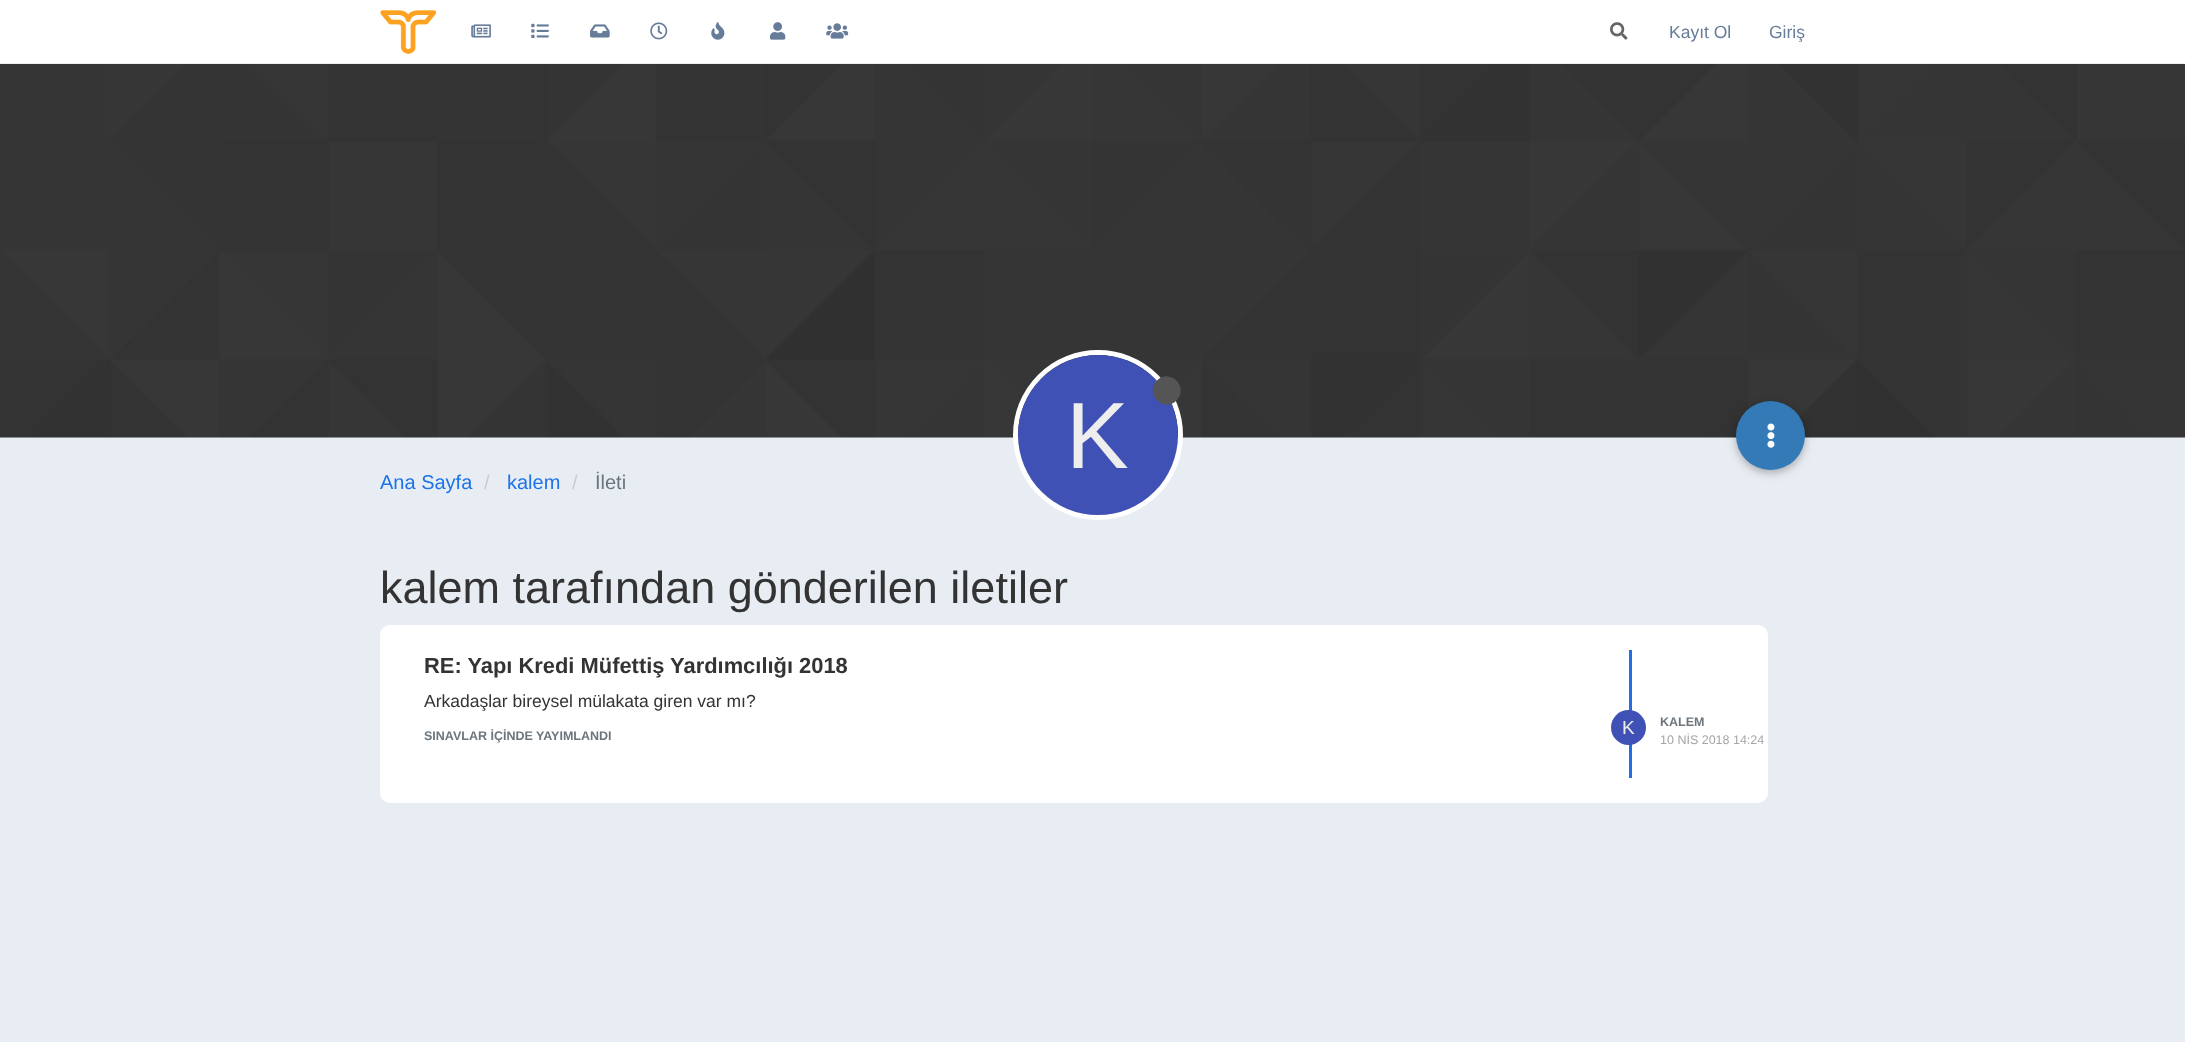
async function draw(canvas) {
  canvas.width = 2185;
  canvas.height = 1042;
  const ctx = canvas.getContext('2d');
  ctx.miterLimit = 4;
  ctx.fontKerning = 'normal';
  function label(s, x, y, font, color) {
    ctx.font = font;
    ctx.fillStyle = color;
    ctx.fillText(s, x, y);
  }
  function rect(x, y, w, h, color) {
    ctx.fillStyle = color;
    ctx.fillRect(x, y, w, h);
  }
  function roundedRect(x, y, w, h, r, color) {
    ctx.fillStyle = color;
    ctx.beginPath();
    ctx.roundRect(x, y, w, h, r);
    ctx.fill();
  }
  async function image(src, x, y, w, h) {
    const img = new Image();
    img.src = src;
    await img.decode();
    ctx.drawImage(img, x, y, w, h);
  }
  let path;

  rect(0, 0, 2185, 1042, '#e8ecf3');
  rect(0, 0, 2185, 63, '#fff');
  rect(0, 63, 2185, 1, '#eee');
  await image('assets/img1.png', 380, 10, 56, 44);
  await image('assets/img2.png', 471, 24, 20, 14);
  await image('assets/img3.png', 531, 23, 18, 16);
  await image('assets/img4.png', 590, 24, 20, 14);
  await image('assets/img5.png', 650, 22, 18, 18);
  await image('assets/img6.png', 711, 22, 14, 18);
  await image('assets/img7.png', 770, 22, 16, 18);
  await image('assets/img8.png', 826, 23, 23, 16);
  await image('assets/img9.png', 1610, 22, 18, 18);
  label('Kayıt Ol', 1669, 38, '17.5px Liberation Sans', '#667c99');
  label('Giriş', 1769, 38, '17.5px Liberation Sans', '#667c99');
  await image('assets/img10.png', 0, 64, 2185, 374);
  ctx.beginPath();
  ctx.arc(1098, 435, 82.5, 0, 2 * Math.PI);
  ctx.strokeStyle = '#fff';
  ctx.lineWidth = 5;
  ctx.stroke();
  ctx.fillStyle = '#3f51b5';
  ctx.beginPath();
  ctx.arc(1098, 435, 80, 0, 2 * Math.PI);
  ctx.fill();
  ctx.fillStyle = '#555';
  path = new Path2D('M1157 380.5C1170 367.5 1189.5 387.5 1176.5 400.5C1163.5 413.5 1144 393.5 1157 380.5Z');
  ctx.fill(path);
  label('K', 1066, 468, '94px Liberation Sans', '#eee');
  ctx.fillStyle = '#0000001f';
  ctx.filter = 'blur(6px)';
  ctx.beginPath();
  ctx.roundRect(1736, 404, 69, 69, 34.5);
  ctx.fill();
  ctx.filter = 'none';
  ctx.fillStyle = '#00000029';
  ctx.filter = 'blur(3px)';
  ctx.beginPath();
  ctx.roundRect(1736, 404, 69, 69, 34.5);
  ctx.fill();
  ctx.filter = 'none';
  ctx.fillStyle = '#337ab7';
  ctx.beginPath();
  ctx.arc(1770.5, 435.5, 34.5, 0, 2 * Math.PI);
  ctx.fill();
  await image('assets/img11.png', 1767, 423, 8, 25);
  label('Ana Sayfa', 380, 489, '20px Liberation Sans', '#1c74e9');
  label('/', 484, 489, '20px Liberation Sans', '#ccc');
  label('kalem', 507, 489, '20px Liberation Sans', '#1c74e9');
  label('/', 572, 489, '20px Liberation Sans', '#ccc');
  label('İleti', 595, 489, '20px Liberation Sans', '#6c757d');
  label('kalem tarafından gönderilen iletiler', 380, 603, '45px Liberation Sans', '#333');
  roundedRect(380, 625, 1388, 178, 10, '#fff');
  rect(1629, 650, 3, 128, '#236ee7');
  label('RE: Yapı Kredi Müfettiş Yardımcılığı 2018', 424, 673, 'bold 21.9px Liberation Sans', '#333');
  label('Arkadaşlar bireysel mülakata giren var mı?', 424, 707, '17.5px Liberation Sans', '#333');
  label('SINAVLAR İÇİNDE YAYIMLANDI', 424, 740, 'bold 12.5px Liberation Sans', '#6c757d');
  ctx.fillStyle = '#3f51b5';
  ctx.beginPath();
  ctx.arc(1628.5, 727.5, 17.5, 0, 2 * Math.PI);
  ctx.fill();
  label('K', 1622, 734, '19px Liberation Sans', '#eee');
  label('KALEM', 1660, 726, 'bold 12.5px Liberation Sans', '#6c757d');
  label('10 NİS 2018 14:24', 1660, 744, '12.5px Liberation Sans', '#a6a6a6');
}

draw(document.querySelector('canvas'));
